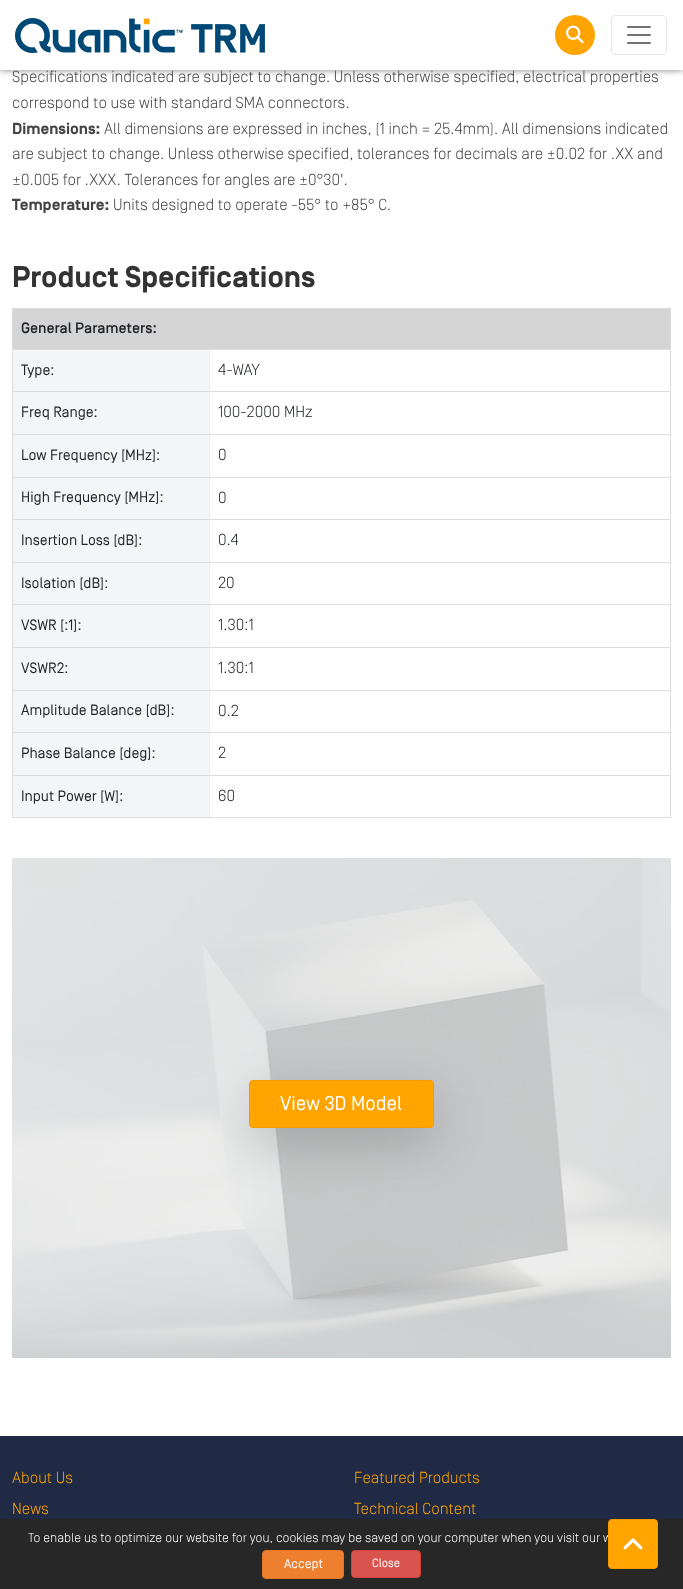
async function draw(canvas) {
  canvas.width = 683;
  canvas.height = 1589;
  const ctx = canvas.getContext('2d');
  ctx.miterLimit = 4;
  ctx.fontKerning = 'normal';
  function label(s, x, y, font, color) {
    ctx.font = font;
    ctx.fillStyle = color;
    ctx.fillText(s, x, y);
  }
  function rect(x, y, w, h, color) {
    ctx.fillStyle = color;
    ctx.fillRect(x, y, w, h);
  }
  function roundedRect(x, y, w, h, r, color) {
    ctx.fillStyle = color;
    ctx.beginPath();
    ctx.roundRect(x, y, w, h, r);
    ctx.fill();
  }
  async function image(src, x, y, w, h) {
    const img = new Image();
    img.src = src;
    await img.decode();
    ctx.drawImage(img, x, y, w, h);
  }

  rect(0, 0, 683, 1589, '#fff');
  ctx.fillStyle = '#00000080';
  ctx.filter = 'blur(3.5px)';
  ctx.beginPath();
  ctx.rect(0, 0, 683, 70);
  ctx.fill();
  ctx.filter = 'none';
  rect(0, 0, 683, 70, '#fff');
  await image('assets/img1.png', 15, 18, 250, 35);
  ctx.fillStyle = '#ffa400';
  ctx.beginPath();
  ctx.arc(575, 35, 20, 0, 2 * Math.PI);
  ctx.fill();
  await image('assets/img2.png', 566, 25, 18, 19);
  ctx.beginPath();
  ctx.roundRect(611.5, 15.5, 55, 39, 3.5);
  ctx.strokeStyle = '#e6e6e6';
  ctx.stroke();
  await image('assets/img3.png', 627, 26, 24, 18);
  label('Specifications indicated are subject to change. Unless otherwise specified, electrical properties', 12, 82, '300 16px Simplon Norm', '#444');
  label('correspond to use with standard SMA connectors.', 12, 108, '300 16px Simplon Norm', '#444');
  label('Dimensions:', 12, 134, 'bold 16px Simplon Norm', '#444');
  label('All dimensions are expressed in inches, (1 inch = 25.4mm). All dimensions indicated', 104, 134, '300 16px Simplon Norm', '#444');
  label('are subject to change. Unless otherwise specified, tolerances for decimals are ±0.02 for .XX and', 12, 159, '300 16px Simplon Norm', '#444');
  label('±0.005 for .XXX. Tolerances for angles are ±0°30\'.', 12, 185, '300 16px Simplon Norm', '#444');
  label('Temperature:', 12, 210, 'bold 16px Simplon Norm', '#444');
  label('Units designed to operate -55° to +85° C.', 113, 210, '300 16px Simplon Norm', '#444');
  label('Product Specifications', 12, 287, 'bold 30px Simplon Norm', '#333');
  rect(12, 308, 659, 1, '#ddd');
  rect(670, 308, 1, 510, '#ddd');
  rect(210, 817, 461, 1, '#ddd');
  rect(12, 308, 1, 510, '#ddd');
  rect(13, 309, 657, 40, '#d4d4d4');
  rect(209, 775, 1, 43, '#eee');
  rect(209, 775, 462, 1, '#ddd');
  rect(209, 732, 1, 44, '#eee');
  rect(209, 732, 462, 1, '#ddd');
  rect(209, 690, 1, 43, '#eee');
  rect(209, 690, 462, 1, '#ddd');
  rect(209, 647, 1, 44, '#eee');
  rect(209, 647, 462, 1, '#ddd');
  rect(209, 604, 1, 44, '#eee');
  rect(209, 604, 462, 1, '#ddd');
  rect(209, 562, 1, 43, '#eee');
  rect(209, 562, 462, 1, '#ddd');
  rect(209, 519, 1, 44, '#eee');
  rect(209, 519, 462, 1, '#ddd');
  rect(209, 477, 1, 43, '#eee');
  rect(209, 477, 462, 1, '#ddd');
  rect(209, 434, 1, 44, '#eee');
  rect(209, 434, 462, 1, '#ddd');
  rect(209, 391, 1, 44, '#eee');
  rect(209, 391, 462, 1, '#ddd');
  rect(209, 349, 1, 43, '#eee');
  rect(12, 349, 659, 1, '#ddd');
  label('General Parameters:', 21, 333, '500 15px Simplon Norm', '#212529');
  rect(13, 350, 196, 41, '#f3f5f7');
  rect(12, 391, 198, 1, '#ddd');
  label('Type:', 21, 375, '15px Simplon Norm', '#212529');
  label('4-WAY', 218, 375, '300 16px Simplon Norm', '#212529');
  rect(13, 392, 196, 42, '#f3f5f7');
  rect(12, 434, 198, 1, '#ddd');
  label('Freq Range:', 21, 417, '15px Simplon Norm', '#212529');
  label('100-2000 MHz', 218, 417, '300 16px Simplon Norm', '#212529');
  rect(13, 435, 196, 42, '#f3f5f7');
  rect(12, 477, 198, 1, '#ddd');
  label('Low Frequency [MHz]:', 21, 460, '15px Simplon Norm', '#212529');
  label('0', 218, 460, '300 16px Simplon Norm', '#212529');
  rect(13, 478, 196, 41, '#f3f5f7');
  rect(12, 519, 198, 1, '#ddd');
  label('High Frequency [MHz]:', 21, 502, '15px Simplon Norm', '#212529');
  label('0', 218, 503, '300 16px Simplon Norm', '#212529');
  rect(13, 520, 196, 42, '#f3f5f7');
  rect(12, 562, 198, 1, '#ddd');
  label('Insertion Loss [dB]:', 21, 545, '15px Simplon Norm', '#212529');
  label('0.4', 218, 545, '300 16px Simplon Norm', '#212529');
  rect(13, 563, 196, 41, '#f3f5f7');
  rect(12, 604, 198, 1, '#ddd');
  label('Isolation [dB]:', 21, 588, '15px Simplon Norm', '#212529');
  label('20', 218, 588, '300 16px Simplon Norm', '#212529');
  rect(13, 605, 196, 42, '#f3f5f7');
  rect(12, 647, 198, 1, '#ddd');
  label('VSWR [:1]:', 21, 630, '15px Simplon Norm', '#212529');
  label('1.30:1', 218, 630, '300 16px Simplon Norm', '#212529');
  rect(13, 648, 196, 42, '#f3f5f7');
  rect(12, 690, 198, 1, '#ddd');
  label('VSWR2:', 21, 673, '15px Simplon Norm', '#212529');
  label('1.30:1', 218, 673, '300 16px Simplon Norm', '#212529');
  rect(13, 691, 196, 41, '#f3f5f7');
  rect(12, 732, 198, 1, '#ddd');
  label('Amplitude Balance [dB]:', 21, 715, '15px Simplon Norm', '#212529');
  label('0.2', 218, 716, '300 16px Simplon Norm', '#212529');
  rect(13, 733, 196, 42, '#f3f5f7');
  rect(12, 775, 198, 1, '#ddd');
  label('Phase Balance [deg]:', 21, 758, '15px Simplon Norm', '#212529');
  label('2', 218, 758, '300 16px Simplon Norm', '#212529');
  rect(13, 776, 196, 41, '#f3f5f7');
  rect(12, 817, 198, 1, '#ddd');
  label('Input Power [W]:', 21, 801, '15px Simplon Norm', '#212529');
  label('60', 218, 801, '300 16px Simplon Norm', '#212529');
  await image('assets/img4.png', 12, 858, 659, 500);
  roundedRect(12, 858, 659, 500, 3, '#e8e8e8cc');
  ctx.fillStyle = '#0000002e';
  ctx.filter = 'blur(24px)';
  ctx.beginPath();
  ctx.roundRect(249, 1096, 185, 48, 4);
  ctx.fill();
  ctx.filter = 'none';
  ctx.fillStyle = '#ffa400';
  ctx.beginPath();
  ctx.roundRect(249.5, 1080.5, 184, 47, 3.5);
  ctx.fill();
  ctx.strokeStyle = '#f59d00';
  ctx.stroke();
  label('View 3D Model', 280, 1110, '20px Simplon Norm', '#fff');
  rect(0, 1436, 683, 83, '#202a44');
  label('About Us', 12, 1483, '300 16px Simplon Norm', '#ffa400');
  label('News', 12, 1514, '300 16px Simplon Norm', '#ffa400');
  label('Featured Products', 354, 1483, '300 16px Simplon Norm', '#ffa400');
  label('Technical Content', 354, 1514, '300 16px Simplon Norm', '#ffa400');
  rect(0, 1519, 683, 70, '#272727');
  label('To enable us to optimize our website for you, cookies may be saved on your computer when you visit our w', 28, 1542, '300 13px Simplon Norm', '#fff');
  ctx.fillStyle = '#ee7f2e';
  ctx.beginPath();
  ctx.roundRect(262.5, 1550.5, 81, 28, 3.5);
  ctx.fill();
  ctx.strokeStyle = '#e17727';
  ctx.stroke();
  label('Accept', 284, 1568, '13px Simplon Norm', '#fff');
  ctx.fillStyle = '#d9534f';
  ctx.beginPath();
  ctx.roundRect(351.5, 1550.5, 69, 27, 3.5);
  ctx.fill();
  ctx.strokeStyle = '#d43f3a';
  ctx.stroke();
  label('Close', 372, 1567, '12px Simplon Norm', '#fff');
  ctx.fillStyle = '#ffa400';
  ctx.beginPath();
  ctx.roundRect(608.5, 1519.5, 49, 49, 3.5);
  ctx.fill();
  ctx.strokeStyle = '#f59d00';
  ctx.stroke();
  await image('assets/img5.png', 623, 1538, 20, 12);
}

draw(document.querySelector('canvas'));
